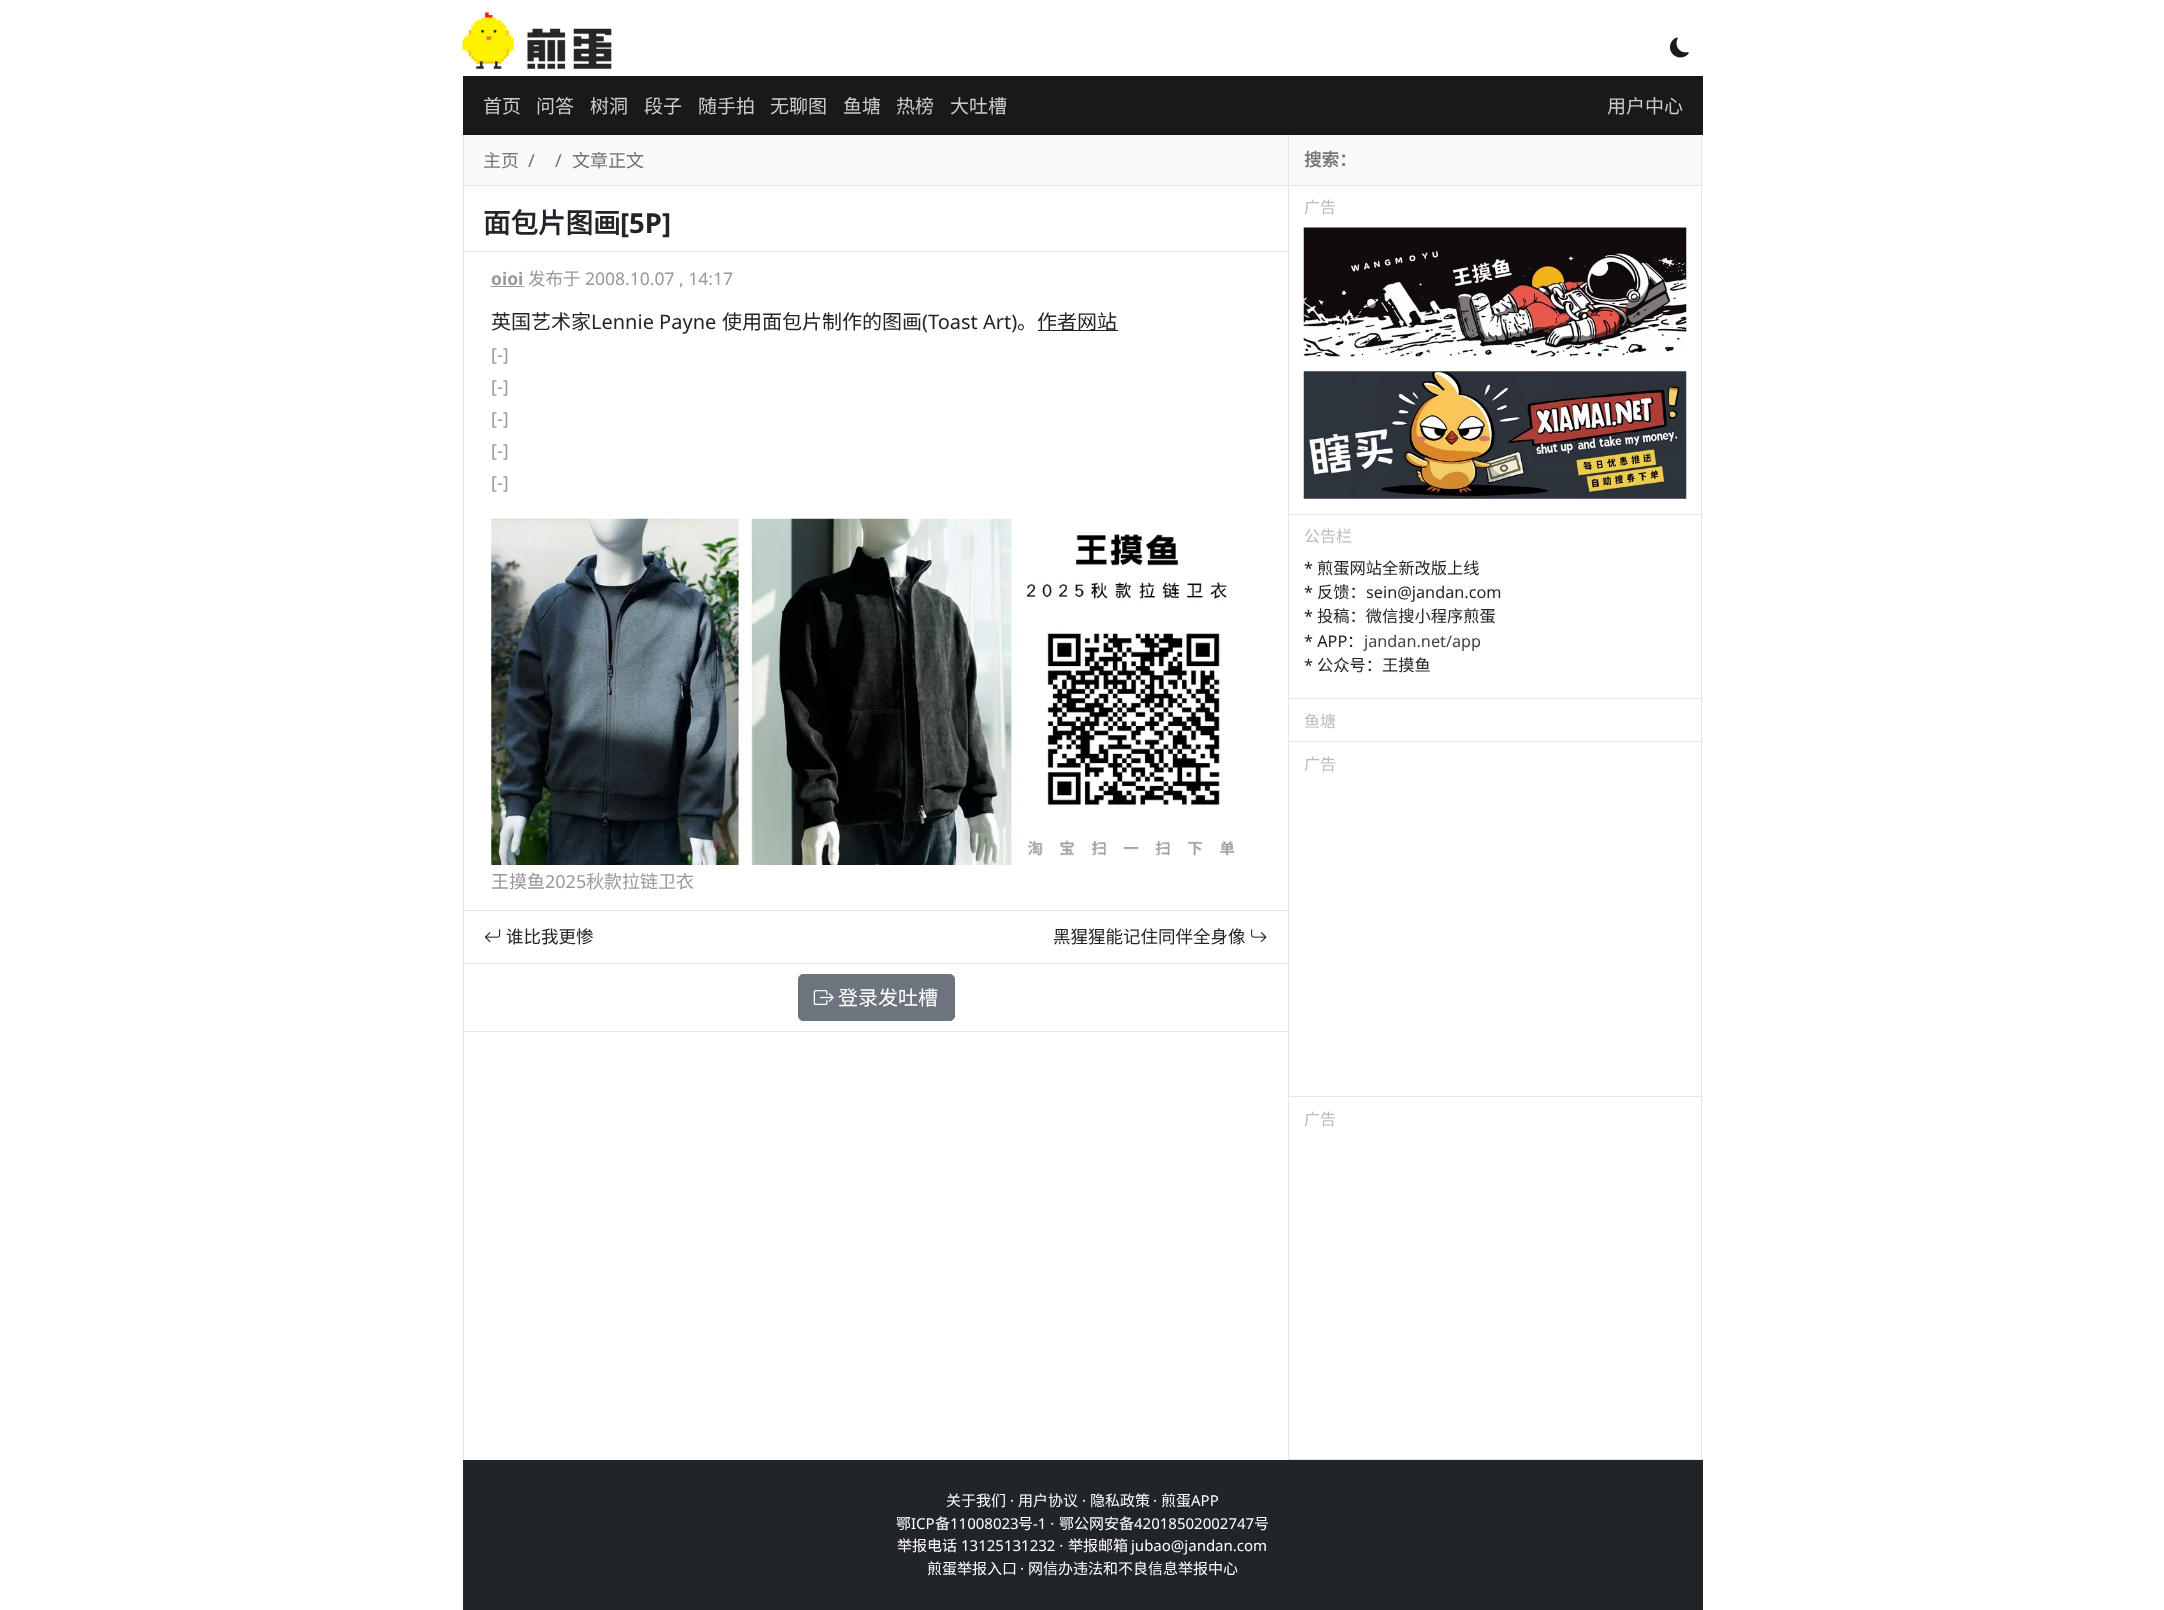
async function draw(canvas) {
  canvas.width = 2164;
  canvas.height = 1610;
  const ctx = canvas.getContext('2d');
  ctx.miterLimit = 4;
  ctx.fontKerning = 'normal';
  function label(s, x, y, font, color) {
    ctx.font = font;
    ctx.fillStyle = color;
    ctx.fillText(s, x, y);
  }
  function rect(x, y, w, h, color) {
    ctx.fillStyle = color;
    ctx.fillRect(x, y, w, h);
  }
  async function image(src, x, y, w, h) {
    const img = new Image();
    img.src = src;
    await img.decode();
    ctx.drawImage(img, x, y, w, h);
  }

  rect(0, 0, 2164, 1610, '#fff');
  await image('assets/img1.png', 462, 12, 150, 57);
  await image('assets/img2.png', 1670, 37, 19, 21);
  rect(463, 76, 1240, 59, '#191919');
  label('首页', 483, 113, '19px Noto Sans CJK SC', '#ccc');
  label('问答', 536, 113, '19px Noto Sans CJK SC', '#ccc');
  label('树洞', 590, 113, '19px Noto Sans CJK SC', '#ccc');
  label('段子', 644, 113, '19px Noto Sans CJK SC', '#ccc');
  label('随手拍', 698, 113, '19px Noto Sans CJK SC', '#ccc');
  label('无聊图', 770, 113, '19px Noto Sans CJK SC', '#ccc');
  label('鱼塘', 843, 113, '19px Noto Sans CJK SC', '#ccc');
  label('热榜', 896, 113, '19px Noto Sans CJK SC', '#ccc');
  label('大吐槽', 950, 113, '19px Noto Sans CJK SC', '#ccc');
  label('用户中心', 1607, 113, '19px Noto Sans CJK SC', '#ccc');
  rect(1288, 135, 1, 1325, '#e5e5e5');
  rect(463, 135, 1, 1325, '#e5e5e5');
  rect(464, 135, 824, 50, '#f9f9f9');
  rect(464, 185, 824, 1, '#e5e5e5');
  label('主页', 483, 167, '18px Noto Sans CJK SC', '#6c757d');
  label('/', 528, 167, '18px Noto Sans', '#6c757d');
  label('/', 555, 167, '18px Noto Sans', '#6c757d');
  label('文章正文', 572, 167, '18px Noto Sans CJK SC', '#6c757d');
  rect(464, 251, 824, 1, '#e5e5e5');
  label('面包片图画', 483, 233, 'bold 27.5px Noto Sans CJK SC', '#212529');
  label('[5P]', 620, 233, 'bold 27.5px Noto Sans', '#212529');
  label('oioi', 491, 285, 'bold 17.5px Noto Sans', '#999');
  rect(491, 286, 33, 1, '#999');
  label('发布于', 528, 285, '17.5px Noto Sans CJK SC', '#999');
  label('2008.10.07 , 14:17', 585, 285, '17.5px Noto Sans', '#999');
  label('英国艺术家', 491, 329, '20px Noto Sans CJK SC', '#212529');
  label('Lennie Payne', 591, 329, '20px Noto Sans', '#212529');
  label('使用面包片制作的图画', 722, 329, '20px Noto Sans CJK SC', '#212529');
  label('(Toast Art)', 922, 329, '20px Noto Sans', '#212529');
  label('。', 1017, 329, '20px Noto Sans CJK SC', '#212529');
  rect(1038, 330, 80, 1, '#212529');
  label('作者网站', 1037, 329, '20px Noto Sans CJK SC', '#212529');
  label('[-]', 491, 361, '18px Noto Sans', '#999');
  label('[-]', 491, 393, '18px Noto Sans', '#999');
  label('[-]', 491, 425, '18px Noto Sans', '#999');
  label('[-]', 491, 457, '18px Noto Sans', '#999');
  label('[-]', 491, 489, '18px Noto Sans', '#999');
  await image('assets/img3.png', 491, 518, 744, 347);
  label('王摸鱼', 491, 888, '18px Noto Sans CJK SC', '#999');
  label('2025', 545, 888, '18px Noto Sans', '#999');
  label('秋款拉链卫衣', 586, 888, '18px Noto Sans CJK SC', '#999');
  rect(464, 910, 824, 1, '#e5e5e5');
  await image('assets/img4.png', 484, 929, 17, 14);
  label('谁比我更惨', 506, 943, '17.5px Noto Sans CJK SC', '#212529');
  label('黑猩猩能记住同伴全身像', 1053, 943, '17.5px Noto Sans CJK SC', '#212529');
  await image('assets/img5.png', 1251, 929, 16, 14);
  rect(464, 963, 824, 1, '#e5e5e5');
  rect(464, 1031, 824, 1, '#e5e5e5');
  ctx.fillStyle = '#6c757d';
  ctx.beginPath();
  ctx.roundRect(798.5, 974.5, 156, 46, 4.5);
  ctx.fill();
  ctx.strokeStyle = '#6c757d';
  ctx.stroke();
  await image('assets/img6.png', 813, 990, 21, 16);
  label('登录发吐槽', 838, 1005, '20px Noto Sans CJK SC', '#fff');
  rect(1701, 135, 1, 1325, '#e5e5e5');
  rect(1289, 135, 412, 50, '#f9f9f9');
  label('搜索：', 1304, 166, 'bold 17.5px Noto Sans CJK SC', '#757575');
  rect(1289, 185, 412, 1, '#e5e5e5');
  label('广告', 1304, 213, '16px Noto Sans CJK SC', '#bbb');
  await image('assets/img7.png', 1303, 227, 384, 130);
  await image('assets/img8.png', 1303, 371, 384, 128);
  rect(1289, 514, 412, 1, '#e5e5e5');
  label('公告栏', 1304, 542, '16px Noto Sans CJK SC', '#bbb');
  label('*', 1304, 574, '16.25px Noto Sans', '#212529');
  label('煎蛋网站全新改版上线', 1317, 574, '16.25px Noto Sans CJK SC', '#212529');
  label('*', 1304, 598, '16.25px Noto Sans', '#212529');
  label('反馈：', 1317, 598, '16.25px Noto Sans CJK SC', '#212529');
  label('sein@jandan.com', 1366, 598, '16.25px Noto Sans', '#212529');
  label('*', 1304, 622, '16.25px Noto Sans', '#212529');
  label('投稿：微信搜小程序煎蛋', 1317, 622, '16.25px Noto Sans CJK SC', '#212529');
  label('* APP', 1304, 647, '16.25px Noto Sans', '#212529');
  label('：', 1347, 647, '16.25px Noto Sans CJK SC', '#212529');
  label('jandan.net/app', 1364, 647, '16.25px Noto Sans', '#444');
  label('*', 1304, 671, '16.25px Noto Sans', '#212529');
  label('公众号：王摸鱼', 1317, 671, '16.25px Noto Sans CJK SC', '#212529');
  rect(1289, 698, 412, 1, '#e5e5e5');
  label('鱼塘', 1304, 727, '16px Noto Sans CJK SC', '#bbb');
  rect(1289, 1459, 412, 1, '#e5e5e5');
  rect(1289, 741, 412, 1, '#e5e5e5');
  label('广告', 1304, 770, '16px Noto Sans CJK SC', '#bbb');
  rect(1289, 1096, 412, 1, '#e5e5e5');
  label('广告', 1304, 1125, '16px Noto Sans CJK SC', '#bbb');
  rect(463, 1460, 1240, 150, '#212529');
  label('关于我们', 946, 1506, '15px Noto Sans CJK SC', '#fff');
  label('·', 1010, 1506, '15px Noto Sans', '#fff');
  label('用户协议', 1018, 1506, '15px Noto Sans CJK SC', '#fff');
  label('·', 1082, 1506, '15px Noto Sans', '#fff');
  label('隐私政策', 1090, 1506, '15px Noto Sans CJK SC', '#fff');
  label('·', 1153, 1506, '15px Noto Sans', '#fff');
  label('煎蛋', 1161, 1506, '15px Noto Sans CJK SC', '#fff');
  label('APP', 1191, 1506, '15px Noto Sans', '#fff');
  label('鄂', 896, 1529, '15px Noto Sans CJK SC', '#fff');
  label('ICP', 911, 1529, '15px Noto Sans', '#fff');
  label('备', 935, 1529, '15px Noto Sans CJK SC', '#fff');
  label('11008023', 950, 1529, '15px Noto Sans', '#fff');
  label('号', 1018, 1529, '15px Noto Sans CJK SC', '#fff');
  label('-1 ·', 1033, 1529, '15px Noto Sans', '#fff');
  label('鄂公网安备', 1059, 1529, '15px Noto Sans CJK SC', '#fff');
  label('42018502002747', 1134, 1529, '15px Noto Sans', '#fff');
  label('号', 1254, 1529, '15px Noto Sans CJK SC', '#fff');
  label('举报电话', 897, 1551, '15px Noto Sans CJK SC', '#fff');
  label('13125131232 ·', 961, 1551, '15px Noto Sans', '#fff');
  label('举报邮箱', 1068, 1551, '15px Noto Sans CJK SC', '#fff');
  label('jubao@jandan.com', 1131, 1551, '15px Noto Sans', '#fff');
  label('煎蛋举报入口', 927, 1574, '15px Noto Sans CJK SC', '#fff');
  label('·', 1020, 1574, '15px Noto Sans', '#fff');
  label('网信办违法和不良信息举报中心', 1028, 1574, '15px Noto Sans CJK SC', '#fff');
}

draw(document.querySelector('canvas'));
